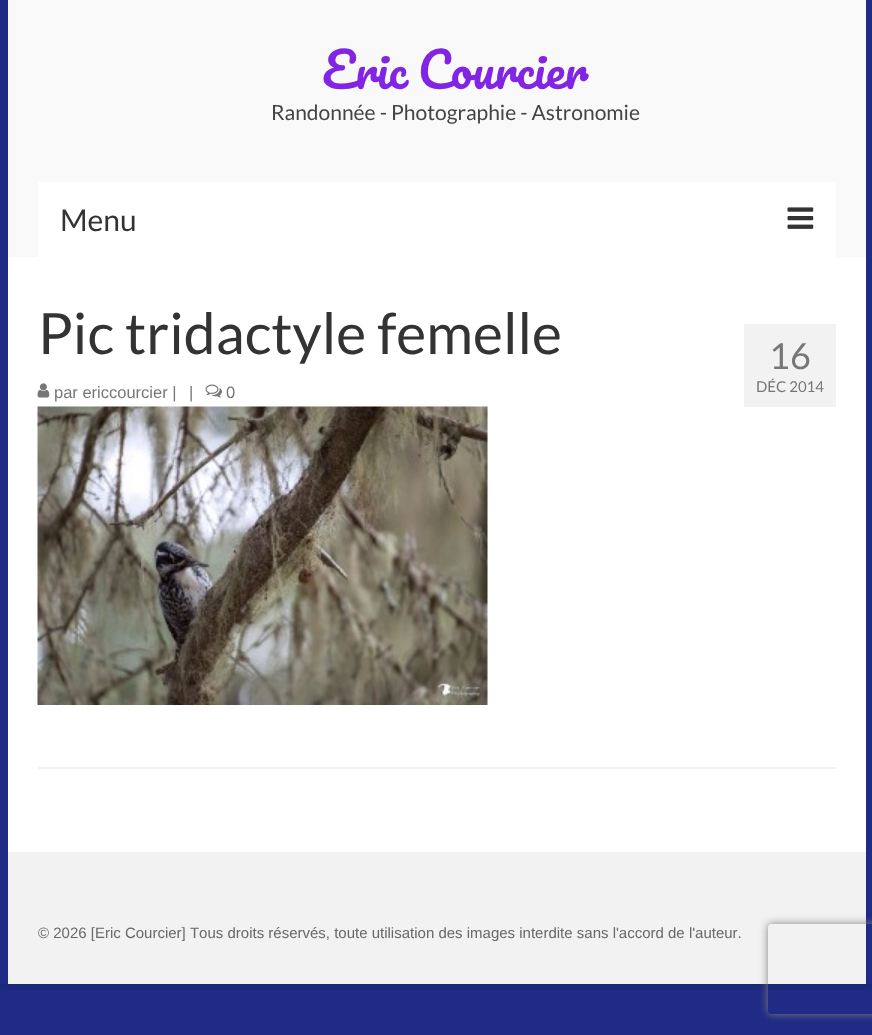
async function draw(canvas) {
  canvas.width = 872;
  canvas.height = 1035;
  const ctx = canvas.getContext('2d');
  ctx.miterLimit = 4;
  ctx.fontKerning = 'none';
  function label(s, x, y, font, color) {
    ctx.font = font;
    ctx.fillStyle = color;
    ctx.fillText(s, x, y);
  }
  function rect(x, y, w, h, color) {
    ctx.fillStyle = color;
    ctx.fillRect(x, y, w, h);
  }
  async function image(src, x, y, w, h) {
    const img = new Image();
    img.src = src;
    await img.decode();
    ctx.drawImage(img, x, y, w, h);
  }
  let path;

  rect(0, 0, 872, 1035, '#1f2b84');
  ctx.save();
  ctx.beginPath();
  ctx.rect(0, 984, 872, 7);
  ctx.clip();
  ctx.fillStyle = '#00000029';
  ctx.filter = 'blur(4px)';
  ctx.beginPath();
  ctx.rect(-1, -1, 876, 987);
  ctx.fill();
  ctx.filter = 'none';
  ctx.restore();
  rect(8, 0, 858, 257, '#f9f9f9');
  ctx.wordSpacing = '-3px';
  label('Eric Courcier', 322, 89, '48px Pacifico', '#8224e3');
  ctx.wordSpacing = '0px';
  label('Randonnée - Photographie - Astronomie', 271, 120, '21px Lato', '#444');
  rect(38, 182, 798, 75, '#fff');
  label('Menu', 60, 231, '30px Lato', '#333');
  await image('assets/img1.png', 787, 207, 27, 22);
  rect(8, 257, 858, 595, '#fff');
  label('Pic tridactyle femelle', 38, 354, '57px Lato', '#333');
  await image('assets/img2.png', 37, 383, 13, 15);
  label('par ericcourcier |', 54, 398, '16.5px Liberation Sans', '#777');
  label('|', 189, 398, '16.5px Liberation Sans', '#777');
  await image('assets/img3.png', 205, 384, 17, 14);
  label('0', 226, 398, '16.5px Liberation Sans', '#777');
  rect(744, 324, 92, 83, '#f2f2f2');
  label('16', 769, 369, '36px Lato', '#777');
  label('DÉC 2014', 756, 392, '15px Lato', '#777');
  await image('assets/img4.png', 37, 406, 451, 299);
  rect(38, 767, 798, 2, '#f2f2f2');
  rect(8, 852, 858, 132, '#f2f2f2');
  label('© 2026 [Eric Courcier] Tous droits réservés, toute utilisation des images interdite sans l\'accord de l\'auteur.', 38, 938, '15px Liberation Sans', '#686868');
  ctx.save();
  path = new Path2D('M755 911H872V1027H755ZM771 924H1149C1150.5 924 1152 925.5 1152 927V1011C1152 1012.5 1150.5 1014 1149 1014H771C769.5 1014 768 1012.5 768 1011V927C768 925.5 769.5 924 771 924Z');
  ctx.clip(path, 'evenodd');
  ctx.fillStyle = '#808080';
  ctx.filter = 'blur(4px)';
  ctx.beginPath();
  ctx.roundRect(768, 924, 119, 90, 3);
  ctx.fill();
  ctx.filter = 'none';
  ctx.restore();
}

draw(document.querySelector('canvas'));
